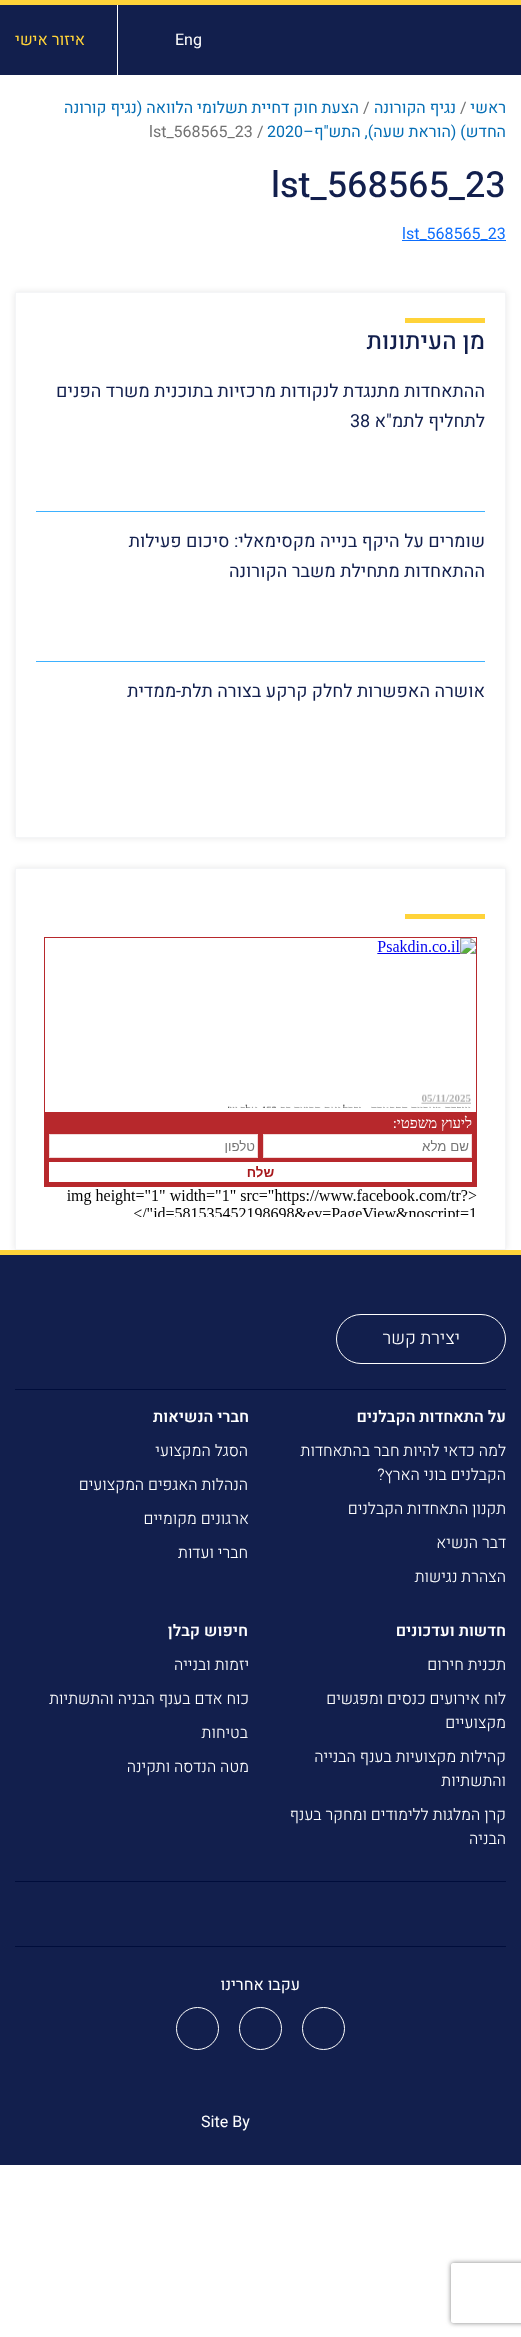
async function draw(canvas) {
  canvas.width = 521;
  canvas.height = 2337;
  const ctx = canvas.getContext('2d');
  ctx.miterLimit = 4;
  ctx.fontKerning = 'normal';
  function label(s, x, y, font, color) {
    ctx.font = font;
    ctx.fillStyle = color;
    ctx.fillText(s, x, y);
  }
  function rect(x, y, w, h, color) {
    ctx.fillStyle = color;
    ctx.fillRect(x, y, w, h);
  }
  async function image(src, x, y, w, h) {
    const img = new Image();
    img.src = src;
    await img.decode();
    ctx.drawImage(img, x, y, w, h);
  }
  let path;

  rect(0, 0, 521, 2337, '#fff');
  rect(0, 5, 521, 70, '#121f4d');
  rect(0, 0, 521, 5, '#ffd339');
  label('Eng', 175, 45, '16px Heebo', '#fff');
  rect(117, 5, 1, 70, '#fff');
  ctx.direction = 'rtl';
  label('איזור אישי', 85, 45, '16px Heebo', '#ffd339');
  label('ראשי', 506, 113, '16px Heebo', '#056eb5');
  ctx.direction = 'ltr';
  label('/', 460, 113, '16px Heebo', '#727272');
  ctx.direction = 'rtl';
  label('נגיף הקורונה', 456, 113, '16px Heebo', '#056eb5');
  ctx.direction = 'ltr';
  label('/', 363, 113, '16px Heebo', '#727272');
  ctx.direction = 'rtl';
  label('הצעת חוק דחיית תשלומי הלוואה (נגיף קורונה', 359, 113, '16px Heebo', '#056eb5');
  label('החדש) (הוראת שעה), התש"ף–', 506, 137, '16px Heebo', '#056eb5');
  ctx.direction = 'ltr';
  label('2020', 267, 137, '16px Heebo', '#056eb5');
  label('/', 257, 137, '16px Heebo', '#727272');
  label('lst_568565_23', 149, 137, '16px Heebo', '#727272');
  label('lst_568565_23', 271, 197, '500 36px Heebo', '#121f4d');
  rect(402, 240, 104, 1, '#0d6efd');
  label('lst_568565_23', 402, 239, '16px Heebo', '#0d6efd');
  ctx.save();
  path = new Path2D('M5 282H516V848H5ZM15 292H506V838H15Z');
  ctx.clip(path, 'evenodd');
  ctx.fillStyle = '#0000001a';
  ctx.filter = 'blur(3px)';
  ctx.beginPath();
  ctx.rect(15, 292, 491, 546);
  ctx.fill();
  ctx.filter = 'none';
  ctx.restore();
  ctx.strokeStyle = '#f4f5f7';
  ctx.strokeRect(15.5, 292.5, 490, 545);
  rect(405, 318, 80, 5, '#ffd339');
  ctx.direction = 'rtl';
  label('מן העיתונות', 485, 349, '500 24px Heebo', '#121f4d');
  rect(36, 511, 449, 1, '#3db1ff');
  label('ההתאחדות מתנגדת לנקודות מרכזיות בתוכנית משרד הפנים', 485, 397, '18px Heebo', '#121f4d');
  label('לתחליף לתמ"א', 485, 427, '18px Heebo', '#121f4d');
  ctx.direction = 'ltr';
  label('38', 350, 427, '18px Heebo', '#121f4d');
  rect(36, 661, 449, 1, '#3db1ff');
  ctx.direction = 'rtl';
  label('שומרים על היקף בנייה מקסימאלי: סיכום פעילות', 485, 547, '18px Heebo', '#121f4d');
  label('ההתאחדות מתחילת משבר הקורונה', 485, 577, '18px Heebo', '#121f4d');
  label('אושרה האפשרות לחלק קרקע בצורה תלת-ממדית', 485, 697, '18px Heebo', '#121f4d');
  ctx.save();
  path = new Path2D('M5 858H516V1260H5ZM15 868H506V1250H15Z');
  ctx.clip(path, 'evenodd');
  ctx.fillStyle = '#0000001a';
  ctx.filter = 'blur(3px)';
  ctx.beginPath();
  ctx.rect(15, 868, 491, 382);
  ctx.fill();
  ctx.filter = 'none';
  ctx.restore();
  ctx.strokeRect(15.5, 868.5, 490, 381);
  rect(405, 914, 80, 5, '#ffd339');
  await image('assets/img1.png', 44, 937, 433, 280);
  rect(0, 1255, 521, 910, '#121f4d');
  rect(0, 1250, 521, 5, '#ffd339');
  rect(15, 1389, 491, 1, '#000d3b');
  ctx.beginPath();
  ctx.roundRect(336.5, 1314.5, 169, 49, 24.5);
  ctx.strokeStyle = '#fff';
  ctx.stroke();
  label('יצירת קשר', 460, 1344, '300 18px Heebo', '#fff');
  label('על התאחדות הקבלנים', 506, 1422, '600 16px Heebo', '#fff');
  label('למה כדאי להיות חבר בהתאחדות', 506, 1456, '300 16px Heebo', '#fff');
  label('הקבלנים בוני הארץ?', 506, 1480, '300 16px Heebo', '#fff');
  label('תקנון התאחדות הקבלנים', 506, 1514, '300 16px Heebo', '#fff');
  label('דבר הנשיא', 506, 1548, '300 16px Heebo', '#fff');
  label('הצהרת נגישות', 506, 1582, '300 16px Heebo', '#fff');
  label('חברי הנשיאות', 249, 1422, '600 16px Heebo', '#fff');
  label('הסגל המקצועי', 248, 1456, '300 16px Heebo', '#fff');
  label('הנהלות האגפים המקצועים', 248, 1490, '300 16px Heebo', '#fff');
  label('ארגונים מקומיים', 249, 1524, '300 16px Heebo', '#fff');
  label('חברי ועדות', 248, 1558, '300 16px Heebo', '#fff');
  label('חדשות ועדכונים', 506, 1636, '600 16px Heebo', '#fff');
  label('תכנית חירום', 506, 1670, '300 16px Heebo', '#fff');
  label('לוח אירועים כנסים ומפגשים', 506, 1704, '300 16px Heebo', '#fff');
  label('מקצועיים', 506, 1728, '300 16px Heebo', '#fff');
  label('קהילות מקצועיות בענף הבנייה', 506, 1762, '300 16px Heebo', '#fff');
  label('והתשתיות', 506, 1786, '300 16px Heebo', '#fff');
  label('קרן המלגות ללימודים ומחקר בענף', 506, 1820, '300 16px Heebo', '#fff');
  label('הבניה', 506, 1844, '300 16px Heebo', '#fff');
  label('חיפוש קבלן', 248, 1636, '600 16px Heebo', '#fff');
  label('יזמות ובנייה', 249, 1670, '300 16px Heebo', '#fff');
  label('כוח אדם בענף הבניה והתשתיות', 249, 1704, '300 16px Heebo', '#fff');
  label('בטיחות', 248, 1738, '300 16px Heebo', '#fff');
  label('מטה הנדסה ותקינה', 249, 1772, '300 16px Heebo', '#fff');
  rect(15, 1881, 491, 1, '#000d3b');
  rect(15, 1946, 491, 1, '#000d3b');
  label('עקבו אחרינו', 300, 1990, '16px Heebo', '#fff');
  ctx.beginPath();
  ctx.arc(323.5, 2028.5, 21, 0, 2 * Math.PI);
  ctx.stroke();
  ctx.beginPath();
  ctx.arc(260.5, 2028.5, 21, 0, 2 * Math.PI);
  ctx.stroke();
  ctx.beginPath();
  ctx.arc(197.5, 2028.5, 21, 0, 2 * Math.PI);
  ctx.stroke();
  ctx.direction = 'ltr';
  label('Site By', 201, 2127, '16px Heebo', '#fff');
  ctx.save();
  path = new Path2D('M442 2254H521V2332H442ZM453 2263H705C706 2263 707 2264 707 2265V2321C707 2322 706 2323 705 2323H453C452 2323 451 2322 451 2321V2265C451 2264 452 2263 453 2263Z');
  ctx.clip(path, 'evenodd');
  ctx.fillStyle = '#808080';
  ctx.filter = 'blur(2.5px)';
  ctx.beginPath();
  ctx.roundRect(451, 2263, 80, 60, 2);
  ctx.fill();
  ctx.filter = 'none';
  ctx.restore();
}

draw(document.querySelector('canvas'));
